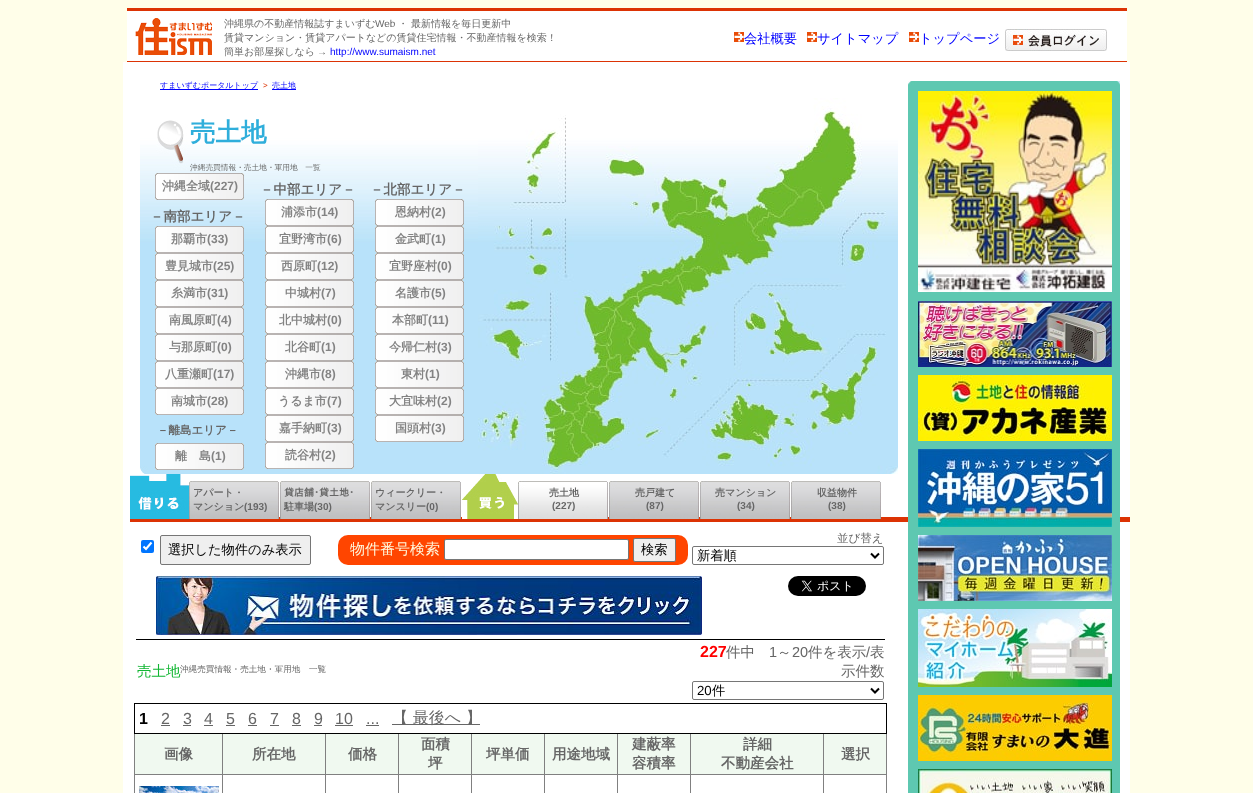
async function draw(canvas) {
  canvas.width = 1253;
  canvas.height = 793;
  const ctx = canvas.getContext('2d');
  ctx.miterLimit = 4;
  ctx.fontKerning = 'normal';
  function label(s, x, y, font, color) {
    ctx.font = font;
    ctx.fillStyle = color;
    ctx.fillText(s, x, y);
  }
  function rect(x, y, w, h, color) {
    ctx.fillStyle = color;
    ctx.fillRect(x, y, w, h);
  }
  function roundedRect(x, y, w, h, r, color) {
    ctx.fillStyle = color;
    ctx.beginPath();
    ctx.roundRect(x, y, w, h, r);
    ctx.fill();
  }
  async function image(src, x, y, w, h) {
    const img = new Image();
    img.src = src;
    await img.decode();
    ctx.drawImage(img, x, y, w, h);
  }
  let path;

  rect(0, 0, 1253, 793, '#fffee9');
  rect(127, 8, 1000, 3, '#dc3304');
  rect(127, 61, 1000, 1, '#dc3304');
  rect(127, 11, 1000, 50, '#fff');
  await image('assets/img1.png', 135, 18, 77, 37);
  label('沖縄県の不動産情報誌すまいずむ', 224, 27, '500 10px WenQuanYi Zen Hei', '#666');
  label('Web', 375, 27, '10px Liberation Sans', '#666');
  label('・ 最新情報を毎日更新中', 398, 27, '500 10px WenQuanYi Zen Hei', '#666');
  label('賃貸マンション・賃貸アパートなどの賃貸住宅情報・不動産情報を検索！', 224, 41, '500 10px WenQuanYi Zen Hei', '#666');
  label('簡単お部屋探しなら', 224, 55, '500 10px WenQuanYi Zen Hei', '#666');
  label('→', 317, 55, '10px Liberation Sans', '#666');
  label('http://www.sumaism.net', 330, 55, '10px Liberation Sans', '#00f');
  await image('assets/img2.png', 734, 32, 10, 10);
  label('会社概要', 744, 43, '500 13.25px WenQuanYi Zen Hei', '#00f');
  await image('assets/img2.png', 807, 32, 10, 10);
  label('サイトマップ', 817, 43, '500 13.25px WenQuanYi Zen Hei', '#00f');
  await image('assets/img2.png', 909, 32, 10, 10);
  label('トップページ', 919, 43, '500 13.25px WenQuanYi Zen Hei', '#00f');
  await image('assets/img3.png', 1005, 29, 102, 22);
  rect(123, 62, 1007, 731, '#fff');
  rect(130, 517, 1000, 5, '#dc3304');
  rect(160, 89, 98, 1, '#00f');
  label('すまいずむポータルトップ', 160, 88, '500 8px WenQuanYi Zen Hei', '#00f');
  label('>', 263, 88, '8px Liberation Sans', '#dc3304');
  label('売土地', 272, 88, '500 8px WenQuanYi Zen Hei', '#00f');
  rect(272, 89, 24, 1, '#00f');
  await image('assets/img4.png', 140, 120, 338, 354);
  label('売土地', 190, 141, 'bold 25.5px WenQuanYi Zen Hei', '#2faedb');
  label('沖縄売買情報・売土地・軍用地　一覧', 190, 170, '500 7.7px WenQuanYi Zen Hei', '#666');
  await image('assets/img5.png', 155, 173, 89, 27);
  label('沖縄全域', 162, 190, 'bold 12px WenQuanYi Zen Hei', '#838383');
  label('(227)', 210, 190, 'bold 12px Liberation Sans', '#838383');
  label('－南部エリア－', 150, 221, 'bold 13.5px WenQuanYi Zen Hei', '#666');
  await image('assets/img6.png', 155, 226, 89, 27);
  label('那覇市', 171, 243, 'bold 12px WenQuanYi Zen Hei', '#838383');
  label('(33)', 207, 243, 'bold 12px Liberation Sans', '#838383');
  await image('assets/img7.png', 155, 253, 89, 27);
  label('豊見城市', 165, 270, 'bold 12px WenQuanYi Zen Hei', '#838383');
  label('(25)', 213, 270, 'bold 12px Liberation Sans', '#838383');
  await image('assets/img7.png', 155, 280, 89, 27);
  label('糸満市', 171, 297, 'bold 12px WenQuanYi Zen Hei', '#838383');
  label('(31)', 207, 297, 'bold 12px Liberation Sans', '#838383');
  await image('assets/img7.png', 155, 307, 89, 27);
  label('南風原町', 169, 324, 'bold 12px WenQuanYi Zen Hei', '#838383');
  label('(4)', 217, 324, 'bold 12px Liberation Sans', '#838383');
  await image('assets/img7.png', 155, 334, 89, 27);
  label('与那原町', 169, 351, 'bold 12px WenQuanYi Zen Hei', '#838383');
  label('(0)', 217, 351, 'bold 12px Liberation Sans', '#838383');
  await image('assets/img7.png', 155, 361, 89, 27);
  label('八重瀬町', 165, 378, 'bold 12px WenQuanYi Zen Hei', '#838383');
  label('(17)', 213, 378, 'bold 12px Liberation Sans', '#838383');
  await image('assets/img7.png', 155, 388, 89, 27);
  label('南城市', 171, 405, 'bold 12px WenQuanYi Zen Hei', '#838383');
  label('(28)', 207, 405, 'bold 12px Liberation Sans', '#838383');
  label('－離島エリア－', 157, 434, 'bold 11.5px WenQuanYi Zen Hei', '#666');
  await image('assets/img7.png', 155, 443, 89, 27);
  label('離　島', 175, 460, 'bold 12px WenQuanYi Zen Hei', '#838383');
  label('(1)', 211, 460, 'bold 12px Liberation Sans', '#838383');
  label('－中部エリア－', 260, 194, 'bold 13.5px WenQuanYi Zen Hei', '#666');
  await image('assets/img8.png', 265, 199, 89, 27);
  label('浦添市', 281, 216, 'bold 12px WenQuanYi Zen Hei', '#838383');
  label('(14)', 317, 216, 'bold 12px Liberation Sans', '#838383');
  await image('assets/img6.png', 265, 226, 89, 27);
  label('宜野湾市', 279, 243, 'bold 12px WenQuanYi Zen Hei', '#838383');
  label('(6)', 327, 243, 'bold 12px Liberation Sans', '#838383');
  await image('assets/img7.png', 265, 253, 89, 27);
  label('西原町', 281, 270, 'bold 12px WenQuanYi Zen Hei', '#838383');
  label('(12)', 317, 270, 'bold 12px Liberation Sans', '#838383');
  await image('assets/img7.png', 265, 280, 89, 27);
  label('中城村', 285, 297, 'bold 12px WenQuanYi Zen Hei', '#838383');
  label('(7)', 321, 297, 'bold 12px Liberation Sans', '#838383');
  await image('assets/img7.png', 265, 307, 89, 27);
  label('北中城村', 279, 324, 'bold 12px WenQuanYi Zen Hei', '#838383');
  label('(0)', 327, 324, 'bold 12px Liberation Sans', '#838383');
  await image('assets/img7.png', 265, 334, 89, 27);
  label('北谷町', 285, 351, 'bold 12px WenQuanYi Zen Hei', '#838383');
  label('(1)', 321, 351, 'bold 12px Liberation Sans', '#838383');
  await image('assets/img7.png', 265, 361, 89, 27);
  label('沖縄市', 285, 378, 'bold 12px WenQuanYi Zen Hei', '#838383');
  label('(8)', 321, 378, 'bold 12px Liberation Sans', '#838383');
  await image('assets/img7.png', 265, 388, 89, 27);
  label('うるま市', 278, 405, 'bold 12px WenQuanYi Zen Hei', '#838383');
  label('(7)', 327, 405, 'bold 12px Liberation Sans', '#838383');
  await image('assets/img7.png', 265, 415, 89, 27);
  label('嘉手納町', 279, 432, 'bold 12px WenQuanYi Zen Hei', '#838383');
  label('(3)', 327, 432, 'bold 12px Liberation Sans', '#838383');
  await image('assets/img7.png', 265, 442, 89, 27);
  label('読谷村', 285, 459, 'bold 12px WenQuanYi Zen Hei', '#838383');
  label('(2)', 321, 459, 'bold 12px Liberation Sans', '#838383');
  label('－北部エリア－', 370, 194, 'bold 13.5px WenQuanYi Zen Hei', '#666');
  await image('assets/img8.png', 375, 199, 89, 27);
  label('恩納村', 395, 216, 'bold 12px WenQuanYi Zen Hei', '#838383');
  label('(2)', 431, 216, 'bold 12px Liberation Sans', '#838383');
  await image('assets/img6.png', 375, 226, 89, 27);
  label('金武町', 395, 243, 'bold 12px WenQuanYi Zen Hei', '#838383');
  label('(1)', 431, 243, 'bold 12px Liberation Sans', '#838383');
  await image('assets/img7.png', 375, 253, 89, 27);
  label('宜野座村', 389, 270, 'bold 12px WenQuanYi Zen Hei', '#838383');
  label('(0)', 437, 270, 'bold 12px Liberation Sans', '#838383');
  await image('assets/img7.png', 375, 280, 89, 27);
  label('名護市', 395, 297, 'bold 12px WenQuanYi Zen Hei', '#838383');
  label('(5)', 431, 297, 'bold 12px Liberation Sans', '#838383');
  await image('assets/img7.png', 375, 307, 89, 27);
  label('本部町', 392, 324, 'bold 12px WenQuanYi Zen Hei', '#838383');
  label('(11)', 428, 324, 'bold 12px Liberation Sans', '#838383');
  await image('assets/img7.png', 375, 334, 89, 27);
  label('今帰仁村', 389, 351, 'bold 12px WenQuanYi Zen Hei', '#838383');
  label('(3)', 437, 351, 'bold 12px Liberation Sans', '#838383');
  await image('assets/img7.png', 375, 361, 89, 27);
  label('東村', 401, 378, 'bold 12px WenQuanYi Zen Hei', '#838383');
  label('(1)', 425, 378, 'bold 12px Liberation Sans', '#838383');
  await image('assets/img7.png', 375, 388, 89, 27);
  label('大宜味村', 389, 405, 'bold 12px WenQuanYi Zen Hei', '#838383');
  label('(2)', 437, 405, 'bold 12px Liberation Sans', '#838383');
  await image('assets/img7.png', 375, 415, 89, 27);
  label('国頭村', 395, 432, 'bold 12px WenQuanYi Zen Hei', '#838383');
  label('(3)', 431, 432, 'bold 12px Liberation Sans', '#838383');
  await image('assets/img9.png', 478, 98, 420, 376);
  await image('assets/img10.png', 130, 474, 59, 45);
  await image('assets/img11.png', 189, 481, 90, 38);
  label('アパート・', 193, 496, 'bold 10px WenQuanYi Zen Hei', '#666');
  label('マンション', 193, 510, 'bold 10px WenQuanYi Zen Hei', '#666');
  label('(193)', 244, 510, 'bold 10px Liberation Sans', '#666');
  await image('assets/img11.png', 280, 481, 90, 38);
  label('貸店舗･貸土地･', 284, 496, 'bold 10px IPAGothic', '#666');
  label('駐車場', 284, 510, 'bold 10px WenQuanYi Zen Hei', '#666');
  label('(30)', 314, 510, 'bold 10px Liberation Sans', '#666');
  await image('assets/img11.png', 371, 481, 90, 38);
  label('ウィークリー・', 375, 496, 'bold 10px WenQuanYi Zen Hei', '#666');
  label('マンスリー', 375, 510, 'bold 10px WenQuanYi Zen Hei', '#666');
  label('(0)', 426, 510, 'bold 10px Liberation Sans', '#666');
  await image('assets/img12.png', 462, 474, 56, 45);
  await image('assets/img13.png', 518, 481, 90, 38);
  label('売土地', 549, 496, 'bold 10px WenQuanYi Zen Hei', '#666');
  label('(227)', 552, 509, 'bold 10px Liberation Sans', '#666');
  await image('assets/img11.png', 609, 481, 90, 38);
  label('売戸建て', 635, 496, 'bold 10px WenQuanYi Zen Hei', '#666');
  label('(87)', 646, 509, 'bold 10px Liberation Sans', '#666');
  await image('assets/img11.png', 700, 481, 90, 38);
  label('売マンション', 715, 496, 'bold 10px WenQuanYi Zen Hei', '#666');
  label('(34)', 737, 509, 'bold 10px Liberation Sans', '#666');
  await image('assets/img11.png', 791, 481, 90, 38);
  label('収益物件', 817, 496, 'bold 10px WenQuanYi Zen Hei', '#666');
  label('(38)', 828, 509, 'bold 10px Liberation Sans', '#666');
  rect(908, 85, 212, 708, '#5ec8b1');
  await image('assets/img14.png', 908, 81, 212, 4);
  await image('assets/img15.png', 918, 91, 194, 201);
  await image('assets/img16.png', 918, 301, 194, 66);
  await image('assets/img17.png', 918, 375, 194, 66);
  await image('assets/img18.png', 918, 449, 194, 78);
  await image('assets/img19.png', 918, 535, 194, 66);
  await image('assets/img20.png', 918, 609, 194, 78);
  await image('assets/img21.png', 918, 695, 194, 66);
  await image('assets/img22.png', 918, 769, 194, 24);
  roundedRect(141, 540, 13, 13, 2, '#0075ff');
  path = new Path2D('M143.5 546.5L146 549L151.5 542.5');
  ctx.strokeStyle = '#fff';
  ctx.lineWidth = 2.1;
  ctx.stroke(path);
  ctx.fillStyle = '#efefef';
  ctx.beginPath();
  ctx.roundRect(160.5, 535.5, 150, 29, 1.5);
  ctx.fill();
  ctx.strokeStyle = '#767676';
  ctx.lineWidth = 1;
  ctx.stroke();
  label('選択した物件のみ表示', 168, 554, '500 13.25px WenQuanYi Zen Hei', '#000');
  roundedRect(338, 535, 350, 30, 10, '#ff4500');
  label('物件番号検索', 350, 554, '500 15px WenQuanYi Zen Hei', '#fff8dc');
  ctx.fillStyle = '#fff';
  ctx.beginPath();
  ctx.roundRect(444.5, 539.5, 184, 20, 1.5);
  ctx.fill();
  ctx.stroke();
  ctx.fillStyle = '#efefef';
  ctx.beginPath();
  ctx.roundRect(633.5, 538.5, 42, 23, 1.5);
  ctx.fill();
  ctx.stroke();
  label('検索', 641, 554, '500 13.25px WenQuanYi Zen Hei', '#000');
  label('並び替え', 837, 542, '500 11.5px WenQuanYi Zen Hei', '#666');
  ctx.beginPath();
  ctx.roundRect(692.5, 546.5, 191, 18, 1.5);
  ctx.stroke();
  path = new Path2D('M871 553.5L875 557.5L879 553.5');
  ctx.strokeStyle = '#000';
  ctx.lineWidth = 2;
  ctx.stroke(path);
  label('新着順', 697, 560, '500 13.25px WenQuanYi Zen Hei', '#000');
  rect(136, 639, 749, 1, '#000');
  await image('assets/img23.png', 156, 576, 546, 59);
  await image('assets/img24.png', 788, 576, 78, 20);
  label('売土地', 137, 676, '500 14.5px WenQuanYi Zen Hei', '#12b633');
  label('沖縄売買情報・売土地・軍用地　一覧', 180, 672, '500 8.6px WenQuanYi Zen Hei', '#666');
  label('227', 700, 657, 'bold 16px Liberation Sans', '#f00');
  label('件中', 726, 657, '500 14.5px WenQuanYi Zen Hei', '#666');
  label('1', 769, 657, '14.5px Liberation Sans', '#666');
  label('～', 777, 657, '500 14.5px WenQuanYi Zen Hei', '#666');
  label('20', 792, 657, '14.5px Liberation Sans', '#666');
  label('件を表示', 808, 657, '500 14.5px WenQuanYi Zen Hei', '#666');
  label('/', 866, 657, '14.5px Liberation Sans', '#666');
  label('表', 870, 657, '500 14.5px WenQuanYi Zen Hei', '#666');
  label('示件数', 841, 676, '500 14.5px WenQuanYi Zen Hei', '#666');
  ctx.beginPath();
  ctx.roundRect(692.5, 681.5, 191, 18, 1.5);
  ctx.strokeStyle = '#767676';
  ctx.lineWidth = 1;
  ctx.stroke();
  path = new Path2D('M871 688.5L875 692.5L879 688.5');
  ctx.strokeStyle = '#000';
  ctx.lineWidth = 2;
  ctx.stroke(path);
  label('20', 697, 695, '13.25px Liberation Sans', '#000');
  label('件', 712, 695, '500 13.25px WenQuanYi Zen Hei', '#000');
  rect(886, 734, 1, 59, '#808080');
  rect(134, 734, 1, 59, '#808080');
  rect(134, 703, 753, 1, '#000');
  rect(886, 703, 1, 31, '#000');
  rect(823, 774, 64, 1, '#808080');
  rect(823, 774, 1, 19, '#808080');
  rect(690, 774, 134, 1, '#808080');
  rect(690, 774, 1, 19, '#808080');
  rect(617, 774, 74, 1, '#808080');
  rect(617, 774, 1, 19, '#808080');
  rect(544, 774, 74, 1, '#808080');
  rect(544, 774, 1, 19, '#808080');
  rect(471, 774, 74, 1, '#808080');
  rect(471, 774, 1, 19, '#808080');
  rect(398, 774, 74, 1, '#808080');
  rect(398, 774, 1, 19, '#808080');
  rect(325, 774, 74, 1, '#808080');
  rect(325, 774, 1, 19, '#808080');
  rect(222, 774, 104, 1, '#808080');
  rect(222, 774, 1, 19, '#808080');
  rect(134, 774, 89, 1, '#808080');
  rect(222, 733, 1, 42, '#808080');
  rect(325, 733, 1, 42, '#808080');
  rect(398, 733, 1, 42, '#808080');
  rect(471, 733, 1, 42, '#808080');
  rect(544, 733, 1, 42, '#808080');
  rect(617, 733, 1, 42, '#808080');
  rect(690, 733, 1, 42, '#808080');
  rect(823, 733, 1, 42, '#808080');
  rect(134, 733, 753, 1, '#000');
  rect(134, 703, 1, 31, '#000');
  label('1', 139, 724, 'bold 16px Liberation Sans', '#000');
  label('2', 161, 724, '16px Liberation Sans', '#666');
  rect(161, 725, 9, 1, '#666');
  label('3', 183, 724, '16px Liberation Sans', '#666');
  rect(183, 725, 8, 1, '#666');
  label('4', 204, 724, '16px Liberation Sans', '#666');
  rect(204, 725, 9, 1, '#666');
  label('5', 226, 724, '16px Liberation Sans', '#666');
  rect(226, 725, 9, 1, '#666');
  label('6', 248, 724, '16px Liberation Sans', '#666');
  rect(248, 725, 9, 1, '#666');
  label('7', 270, 724, '16px Liberation Sans', '#666');
  rect(270, 725, 9, 1, '#666');
  label('8', 292, 724, '16px Liberation Sans', '#666');
  rect(292, 725, 9, 1, '#666');
  label('9', 314, 724, '16px Liberation Sans', '#666');
  rect(314, 725, 8, 1, '#666');
  label('10', 335, 724, '16px Liberation Sans', '#666');
  rect(335, 725, 18, 1, '#666');
  label('...', 366, 724, '16px Liberation Sans', '#666');
  rect(366, 725, 13, 1, '#666');
  rect(392, 724, 88, 1, '#666');
  label('【 最後へ 】', 392, 723, '500 16px WenQuanYi Zen Hei', '#666');
  rect(135, 734, 87, 40, '#f0f9f0');
  label('画像', 164, 759, 'bold 14.5px WenQuanYi Zen Hei', '#666');
  rect(223, 734, 102, 40, '#f0f9f0');
  label('所在地', 252, 759, 'bold 14.5px WenQuanYi Zen Hei', '#666');
  rect(326, 734, 72, 40, '#f0f9f0');
  label('価格', 348, 759, 'bold 14.5px WenQuanYi Zen Hei', '#666');
  rect(399, 734, 72, 40, '#f0f9f0');
  label('面積', 421, 749, 'bold 14.5px WenQuanYi Zen Hei', '#666');
  label('坪', 428, 768, 'bold 14.5px WenQuanYi Zen Hei', '#666');
  rect(472, 734, 72, 40, '#f0f9f0');
  label('坪単価', 486, 759, 'bold 14.5px WenQuanYi Zen Hei', '#666');
  rect(545, 734, 72, 40, '#f0f9f0');
  label('用途地域', 552, 759, 'bold 14.5px WenQuanYi Zen Hei', '#666');
  rect(618, 734, 72, 40, '#f0f9f0');
  label('建蔽率', 632, 749, 'bold 14.5px WenQuanYi Zen Hei', '#666');
  label('容積率', 632, 768, 'bold 14.5px WenQuanYi Zen Hei', '#666');
  rect(691, 734, 132, 40, '#f0f9f0');
  label('詳細', 743, 749, 'bold 14.5px WenQuanYi Zen Hei', '#666');
  label('不動産会社', 721, 768, 'bold 14.5px WenQuanYi Zen Hei', '#666');
  rect(824, 734, 62, 40, '#f0f9f0');
  label('選択', 841, 759, 'bold 14.5px WenQuanYi Zen Hei', '#666');
  await image('assets/img25.png', 139, 786, 80, 7);
}

draw(document.querySelector('canvas'));
